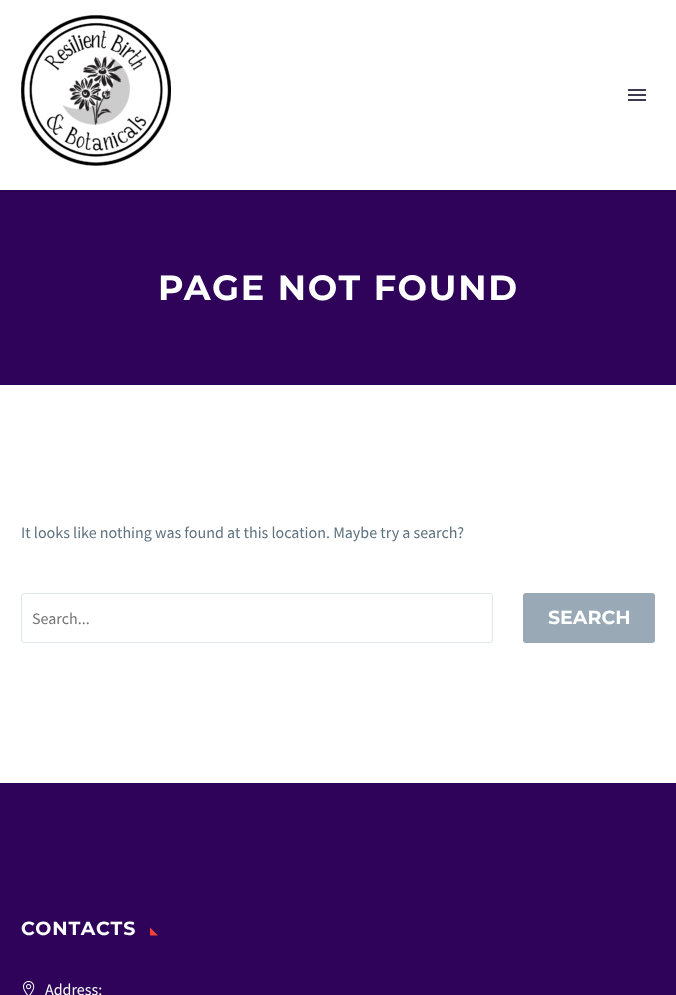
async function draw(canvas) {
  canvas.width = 676;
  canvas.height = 995;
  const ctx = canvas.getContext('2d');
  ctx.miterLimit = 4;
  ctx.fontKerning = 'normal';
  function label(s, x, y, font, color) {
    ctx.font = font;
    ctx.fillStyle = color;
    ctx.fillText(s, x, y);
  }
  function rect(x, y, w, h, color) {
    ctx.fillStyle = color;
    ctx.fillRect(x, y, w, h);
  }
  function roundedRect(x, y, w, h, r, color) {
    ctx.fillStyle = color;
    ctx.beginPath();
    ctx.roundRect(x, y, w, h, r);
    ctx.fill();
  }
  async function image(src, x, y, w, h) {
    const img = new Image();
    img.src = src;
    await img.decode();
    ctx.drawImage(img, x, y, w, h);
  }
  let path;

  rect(0, 0, 676, 995, '#fff');
  await image('assets/img1.png', 21, 15, 150, 151);
  rect(628, 89, 18, 2, '#3c3950');
  rect(628, 94, 18, 2, '#3c3950');
  rect(628, 99, 18, 2, '#3c3950');
  rect(0, 190, 676, 195, '#2e0359');
  ctx.letterSpacing = '1.75px';
  label('PAGE NOT FOUND', 158, 300, 'bold 35px Montserrat', '#feffff');
  ctx.letterSpacing = '0px';
  label('It looks like nothing was found at this location. Maybe try a search?', 21, 538, '16px Source Sans Pro', '#5f727f');
  ctx.beginPath();
  ctx.roundRect(21.5, 593.5, 471, 49, 2.5);
  ctx.strokeStyle = '#dfe5e8';
  ctx.stroke();
  label('Search...', 32, 624, '16px Source Sans Pro', '#757575');
  roundedRect(523, 593, 132, 50, 3, '#99a9b5');
  label('SEARCH', 548, 624, 'bold 19px Montserrat', '#feffff');
  rect(0, 783, 676, 212, '#2e0359');
  ctx.letterSpacing = '1px';
  label('CONTACTS', 21, 935, 'bold 19px Montserrat', '#feffff');
  ctx.fillStyle = '#f44336';
  path = new Path2D('M150 927.5V935.5H158Z');
  ctx.fill(path);
  await image('assets/img2.png', 23, 981, 12, 14);
  ctx.letterSpacing = '0px';
  label('Address:', 45, 995, '16px Source Sans Pro', '#feffff');
}

draw(document.querySelector('canvas'));
